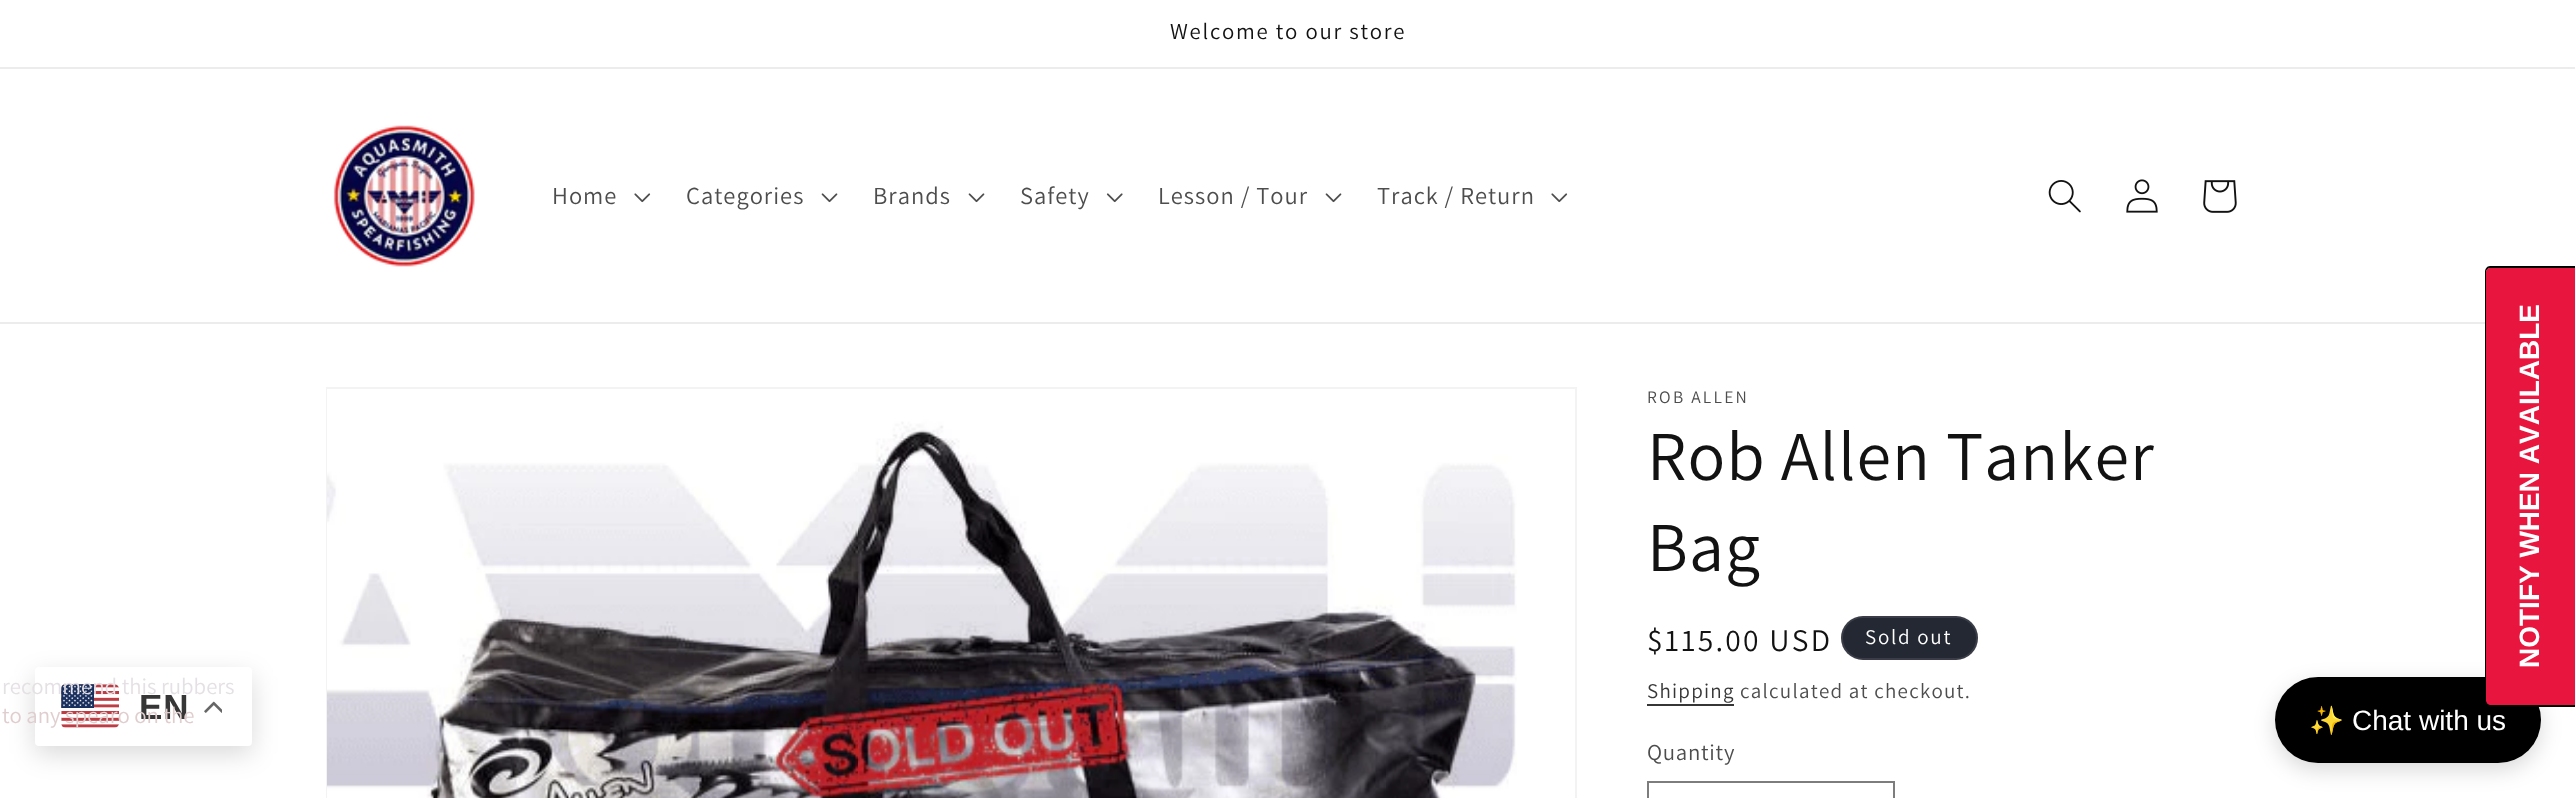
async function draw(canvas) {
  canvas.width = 2575;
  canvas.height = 798;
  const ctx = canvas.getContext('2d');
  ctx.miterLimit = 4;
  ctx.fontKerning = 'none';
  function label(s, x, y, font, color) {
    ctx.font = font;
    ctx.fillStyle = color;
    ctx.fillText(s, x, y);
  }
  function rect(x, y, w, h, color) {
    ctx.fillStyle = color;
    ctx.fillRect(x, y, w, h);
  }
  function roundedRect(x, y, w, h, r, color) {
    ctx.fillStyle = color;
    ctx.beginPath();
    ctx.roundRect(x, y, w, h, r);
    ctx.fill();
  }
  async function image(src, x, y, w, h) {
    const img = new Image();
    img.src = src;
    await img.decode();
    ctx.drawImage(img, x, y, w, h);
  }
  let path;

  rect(0, 0, 2575, 798, '#fff');
  rect(0, 67, 2575, 2, '#ececec');
  ctx.letterSpacing = '1.75px';
  label('Welcome to our store', 1170, 39, '22.75px Assistant', '#121212');
  rect(0, 322, 2485, 2, '#ececec');
  await image('assets/img1.png', 333, 125, 142, 142);
  ctx.letterSpacing = '1px';
  label('Home', 552, 204, '24.5px Assistant', '#4d4d4d');
  await image('assets/img2.png', 634, 193, 17, 10);
  label('Categories', 686, 204, '24.5px Assistant', '#4d4d4d');
  await image('assets/img3.png', 821, 193, 17, 10);
  label('Brands', 873, 204, '24.5px Assistant', '#4d4d4d');
  await image('assets/img3.png', 968, 193, 17, 10);
  label('Safety', 1020, 204, '24.5px Assistant', '#4d4d4d');
  await image('assets/img4.png', 1106, 193, 17, 10);
  label('Lesson / Tour', 1158, 204, '24.5px Assistant', '#4d4d4d');
  await image('assets/img3.png', 1325, 193, 17, 10);
  label('Track / Return', 1377, 204, '24.5px Assistant', '#4d4d4d');
  await image('assets/img2.png', 1551, 193, 17, 10);
  await image('assets/img5.png', 2048, 180, 33, 33);
  await image('assets/img6.png', 2126, 179, 32, 34);
  await image('assets/img7.png', 2203, 180, 34, 33);
  ctx.fillStyle = '#00000026';
  ctx.filter = 'blur(13px)';
  ctx.beginPath();
  ctx.roundRect(35, 676, 217, 78, 4);
  ctx.fill();
  ctx.filter = 'none';
  roundedRect(35, 667, 217, 79, 4, '#fff');
  await image('assets/img9.png', 61, 684, 58, 44);
  ctx.letterSpacing = '0px';
  label('recommend this rubbers', 2, 694, '22.75px Assistant', '#e5e0e5');
  ctx.letterSpacing = '1px';
  label('EN', 139, 719, 'bold 35px Liberation Sans', '#363636');
  ctx.letterSpacing = '0px';
  label('to any spearo on the', 2, 723, '22.75px Assistant', '#e0cecf');
  ctx.strokeStyle = '#f3f3f3';
  ctx.lineWidth = 2;
  ctx.strokeRect(327, 388, 1249, 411);
  await image('assets/img8.png', 327, 389, 1190, 409);
  ctx.letterSpacing = '2.25px';
  label('ROB ALLEN', 1647, 403, '17.5px Assistant', '#4d4d4d');
  ctx.letterSpacing = '1px';
  label('Rob Allen Tanker', 1647, 480, '70px Assistant', '#121212');
  label('Bag', 1647, 571, '70px Assistant', '#121212');
  ctx.letterSpacing = '2.25px';
  label('$115.00 USD', 1647, 651, '31.5px Assistant', '#121212');
  roundedRect(1841, 616, 137, 44, 22, '#242833');
  ctx.beginPath();
  ctx.roundRect(1842, 617, 135, 42, 21);
  ctx.strokeStyle = '#ffffff1a';
  ctx.stroke();
  ctx.letterSpacing = '1.75px';
  label('Sold out', 1865, 644, '21px Assistant', '#fff');
  ctx.letterSpacing = '1.25px';
  label('Shipping', 1647, 698, '21px Assistant', '#363636');
  rect(1647, 704, 87, 2, '#363636');
  label('calculated at checkout.', 1740, 698, '21px Assistant', '#4d4d4d');
  ctx.letterSpacing = '0.75px';
  label('Quantity', 1647, 760, '22.75px Assistant', '#4d4d4d');
  ctx.strokeStyle = '#7d7d7d';
  ctx.strokeRect(1648, 782, 246, 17);
  ctx.fillStyle = '#00000026';
  ctx.filter = 'blur(10.5px)';
  ctx.beginPath();
  ctx.roundRect(2275, 684, 266, 86, 43);
  ctx.fill();
  ctx.filter = 'none';
  roundedRect(2275, 677, 266, 86, 43, '#000');
  ctx.fillStyle = '#e8153e';
  path = new Path2D('M2486 701V272C2486 270 2488 268 2490 268H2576V705H2490C2488 705 2486 703 2486 701Z');
  ctx.fill(path);
  ctx.fillStyle = '#000';
  path = new Path2D('M2485 701V272C2485 269 2487 266 2490 266H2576V707H2490C2487 707 2485 704 2485 701ZM2486 701V272C2486 270 2488 268 2490 268H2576V705H2490C2488 705 2486 703 2486 701Z');
  ctx.fill(path, 'evenodd');
  ctx.letterSpacing = '0px';
  ctx.font = 'bold 28px Liberation Sans';
  ctx.fillStyle = '#fff';
  ctx.save();
  ctx.translate(2539, 668);
  ctx.rotate(-90 * Math.PI / 180);
  ctx.fillText('NOTIFY WHEN AVAILABLE', 0, 0);
  ctx.restore();
  await image('assets/img10.png', 204, 701, 18, 12);
  label('✨', 2309, 730, '28px Noto Color Emoji', '#fff');
  label('Chat with us', 2352, 730, '28px Liberation Sans', '#fff');
}

draw(document.querySelector('canvas'));
